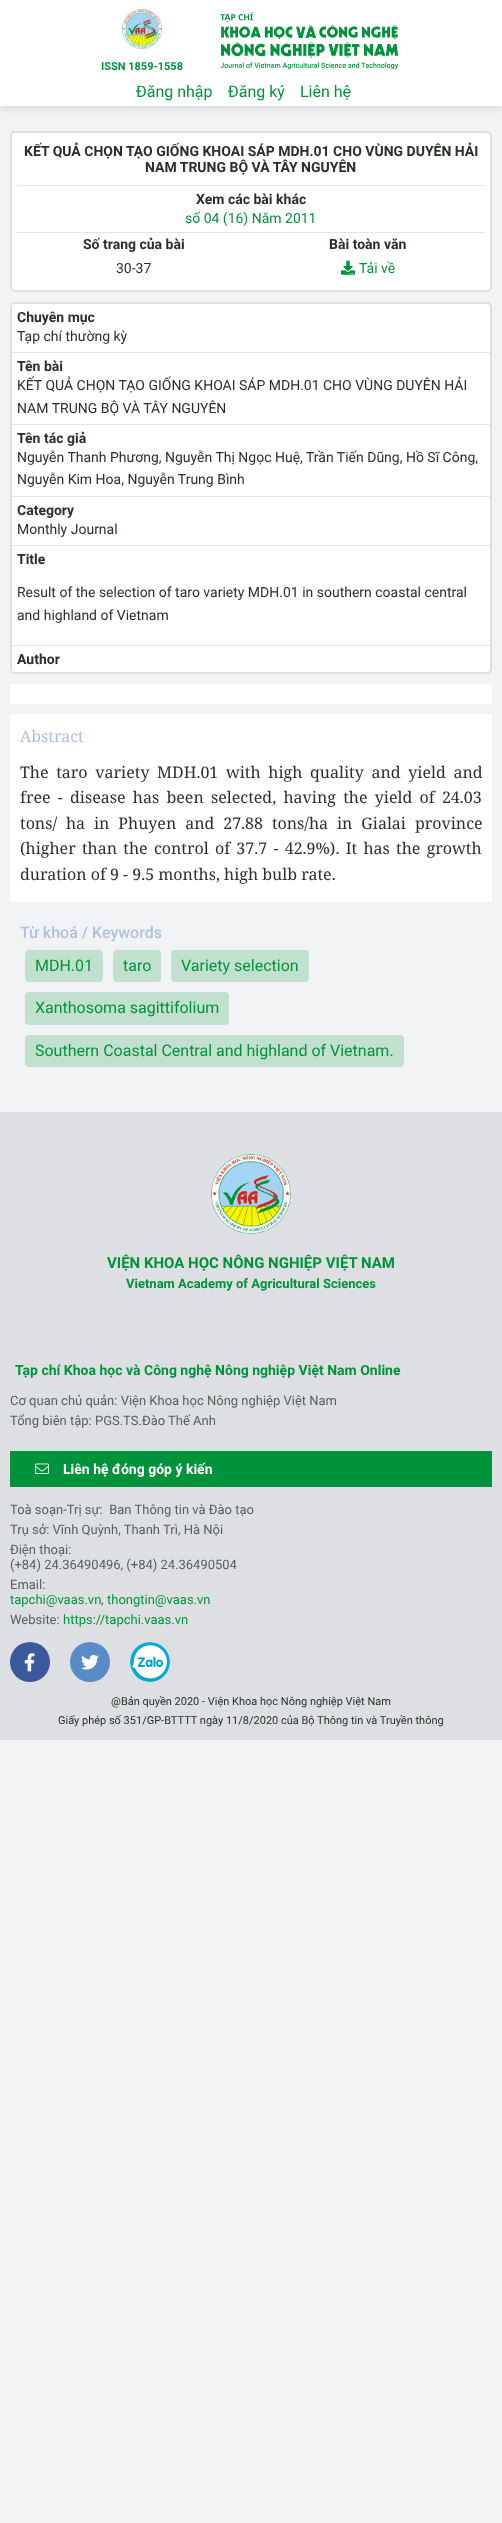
async function draw(canvas) {
  canvas.width = 502;
  canvas.height = 2523;
  const ctx = canvas.getContext('2d');
  ctx.miterLimit = 4;
  ctx.fontKerning = 'normal';
  function label(s, x, y, font, color) {
    ctx.font = font;
    ctx.fillStyle = color;
    ctx.fillText(s, x, y);
  }
  function rect(x, y, w, h, color) {
    ctx.fillStyle = color;
    ctx.fillRect(x, y, w, h);
  }
  function roundedRect(x, y, w, h, r, color) {
    ctx.fillStyle = color;
    ctx.beginPath();
    ctx.roundRect(x, y, w, h, r);
    ctx.fill();
  }
  async function image(src, x, y, w, h) {
    const img = new Image();
    img.src = src;
    await img.decode();
    ctx.drawImage(img, x, y, w, h);
  }

  rect(0, 0, 502, 2523, '#f2f3f4');
  ctx.fillStyle = '#0000001a';
  ctx.filter = 'blur(3px)';
  ctx.beginPath();
  ctx.rect(0, 3, 502, 106);
  ctx.fill();
  ctx.filter = 'none';
  rect(0, 0, 502, 106, '#fff');
  await image('assets/img1.png', 122, 9, 40, 40);
  label('ISSN 1859-1558', 101, 70, 'bold 11px Roboto', '#00933b');
  await image('assets/img2.png', 220, 12, 179, 58);
  label('Đăng nhập', 136, 97, '16px Roboto', '#00933b');
  label('Đăng ký', 228, 97, '16px Roboto', '#00933b');
  label('Liên hệ', 300, 97, '16px Roboto', '#00933b');
  ctx.fillStyle = '#fff';
  ctx.beginPath();
  ctx.roundRect(11, 132, 480, 159, 4);
  ctx.fill();
  ctx.strokeStyle = '#dfdfdf';
  ctx.lineWidth = 2;
  ctx.stroke();
  rect(17, 185, 468, 1, '#e4e4e4');
  label('KẾT QUẢ CHỌN TẠO GIỐNG KHOAI SÁP MDH.01 CHO VÙNG DUYÊN HẢI', 24, 156, 'bold 14px Roboto', '#293028');
  label('NAM TRUNG BỘ VÀ TÂY NGUYÊN', 145, 172, 'bold 14px Roboto', '#293028');
  rect(17, 232, 468, 1, '#e4e4e4');
  label('Xem các bài khác', 196, 204, 'bold 14px Roboto', '#293028');
  label('số 04 (16) Năm 2011', 185, 223, '14px Roboto', '#00933b');
  label('Số trang của bài', 83, 249, 'bold 14px Roboto', '#293028');
  label('30-37', 116, 273, '14px Roboto', '#293028');
  label('Bài toàn văn', 329, 249, 'bold 14px Roboto', '#293028');
  await image('assets/img3.png', 341, 260, 14, 15);
  label('Tải về', 359, 273, '14px Roboto', '#00933b');
  ctx.fillStyle = '#fff';
  ctx.beginPath();
  ctx.roundRect(11, 303, 480, 370, 4);
  ctx.fill();
  ctx.stroke();
  label('Chuyên mục', 17, 322, 'bold 14px Roboto', '#293028');
  label('Tạp chí thường kỳ', 17, 341, '14px Roboto', '#293028');
  rect(12, 352, 478, 1, '#e4e4e4');
  label('Tên bài', 17, 371, 'bold 14px Roboto', '#293028');
  label('KẾT QUẢ CHỌN TẠO GIỐNG KHOAI SÁP MDH.01 CHO VÙNG DUYÊN HẢI', 17, 390, '14px Roboto', '#293028');
  label('NAM TRUNG BỘ VÀ TÂY NGUYÊN', 17, 413, '14px Roboto', '#293028');
  rect(12, 424, 478, 1, '#e4e4e4');
  label('Tên tác giả', 17, 443, 'bold 14px Roboto', '#293028');
  label('Nguyễn Thanh Phương, Nguyễn Thị Ngọc Huệ, Trần Tiến Dũng, Hồ Sĩ Công,', 17, 462, '14px Roboto', '#293028');
  label('Nguyễn Kim Hoa, Nguyễn Trung Bình', 17, 484, '14px Roboto', '#293028');
  rect(12, 496, 478, 1, '#e4e4e4');
  label('Category', 17, 515, 'bold 14px Roboto', '#293028');
  label('Monthly Journal', 17, 534, '14px Roboto', '#293028');
  rect(12, 545, 478, 1, '#e4e4e4');
  label('Title', 17, 564, 'bold 14px Roboto', '#293028');
  label('Result of the selection of taro variety MDH.01 in southern coastal central', 17, 597, '14px Roboto', '#293028');
  label('and highland of Vietnam', 17, 620, '14px Roboto', '#293028');
  rect(12, 645, 478, 1, '#e4e4e4');
  label('Author', 17, 664, 'bold 14px Roboto', '#293028');
  rect(10, 684, 482, 20, '#fff');
  rect(10, 714, 482, 188, '#fff');
  label('Abstract', 20, 742, '16px Noto Serif', '#b0c1da');
  ctx.wordSpacing = '3.5px';
  label('The taro variety MDH.01 with high quality and yield and', 20, 778, '16px Noto Serif', '#293028');
  ctx.wordSpacing = '3.1px';
  label('free - disease has been selected, having the yield of 24.03', 20, 803, '16px Noto Serif', '#293028');
  ctx.wordSpacing = '4.75px';
  label('tons/ ha in Phuyen and 27.88 tons/ha in Gialai province', 20, 829, '16px Noto Serif', '#293028');
  ctx.wordSpacing = '2.1px';
  label('(higher than the control of 37.7 - 42.9%). It has the growth', 20, 854, '16px Noto Serif', '#293028');
  ctx.wordSpacing = '0px';
  label('duration of 9 - 9.5 months, high bulb rate.', 20, 880, '16px Noto Serif', '#293028');
  label('Từ khoá / Keywords', 20, 938, '500 16px Roboto', '#b0c1da');
  roundedRect(25, 950, 78, 32, 4, '#c2e0cf');
  label('MDH.01', 35, 971, '16px Roboto', '#00933b');
  roundedRect(113, 950, 48, 32, 4, '#c2e0cf');
  label('taro', 123, 971, '16px Roboto', '#00933b');
  roundedRect(171, 950, 138, 32, 4, '#c2e0cf');
  label('Variety selection', 181, 971, '16px Roboto', '#00933b');
  roundedRect(25, 992, 204, 33, 4, '#c2e0cf');
  label('Xanthosoma sagittifolium', 35, 1013, '16px Roboto', '#00933b');
  roundedRect(25, 1035, 379, 32, 4, '#c2e0cf');
  label('Southern Coastal Central and highland of Vietnam.', 35, 1056, '16px Roboto', '#00933b');
  rect(0, 1112, 502, 628, '#dddfe2');
  await image('assets/img4.png', 211, 1154, 80, 80);
  label('VIỆN KHOA HỌC NÔNG NGHIỆP VIỆT NAM', 107, 1268, 'bold 15px Roboto', '#00933b');
  label('Vietnam Academy of Agricultural Sciences', 126, 1288, 'bold 13px Roboto', '#00933b');
  label('Tạp chí Khoa học và Công nghệ Nông nghiệp Việt Nam Online', 15, 1375, 'bold 14px Roboto', '#00933b');
  label('Cơ quan chủ quản: Viện Khoa học Nông nghiệp Việt Nam', 10, 1405, '13px Roboto', '#58605b');
  label('Tổng biên tập: PGS.TS.Đào Thế Anh', 10, 1425, '13px Roboto', '#58605b');
  rect(10, 1451, 482, 36, '#00933b');
  await image('assets/img5.png', 35, 1463, 14, 11);
  label('Liên hệ đóng góp ý kiến', 63, 1474, 'bold 14px Roboto', '#fff');
  label('Toà soạn-Trị sự:  Ban Thông tin và Đào tạo', 10, 1514, '13px Roboto', '#58605b');
  label('Trụ sở: Vĩnh Quỳnh, Thanh Trì, Hà Nội', 10, 1534, '13px Roboto', '#58605b');
  label('Điện thoại:', 10, 1554, '13px Roboto', '#58605b');
  label('(+84) 24.36490496, (+84) 24.36490504', 10, 1569, '13px Roboto', '#58605b');
  label('Email:', 10, 1589, '13px Roboto', '#58605b');
  label('tapchi@vaas.vn', 10, 1604, '13px Roboto', '#00933b');
  label(',', 101, 1604, '13px Roboto', '#58605b');
  label('thongtin@vaas.vn', 107, 1604, '13px Roboto', '#00933b');
  label('Website:', 10, 1624, '13px Roboto', '#58605b');
  label('https://tapchi.vaas.vn', 63, 1624, '13px Roboto', '#00933b');
  ctx.fillStyle = '#3a589b';
  ctx.beginPath();
  ctx.arc(30, 1662, 20, 0, 2 * Math.PI);
  ctx.fill();
  await image('assets/img6.png', 24, 1653, 11, 19);
  ctx.fillStyle = '#588cc9';
  ctx.beginPath();
  ctx.arc(90, 1662, 20, 0, 2 * Math.PI);
  ctx.fill();
  await image('assets/img7.png', 81, 1654, 18, 16);
  await image('assets/img8.png', 130, 1642, 40, 40);
  label('@Bản quyền 2020 - Viện Khoa học Nông nghiệp Việt Nam', 111, 1705, '11px Roboto', '#293028');
  label('Giấy phép số 351/GP-BTTTT ngày 11/8/2020 của Bộ Thông tin và Truyền thông', 58, 1724, '11px Roboto', '#293028');
}

draw(document.querySelector('canvas'));
